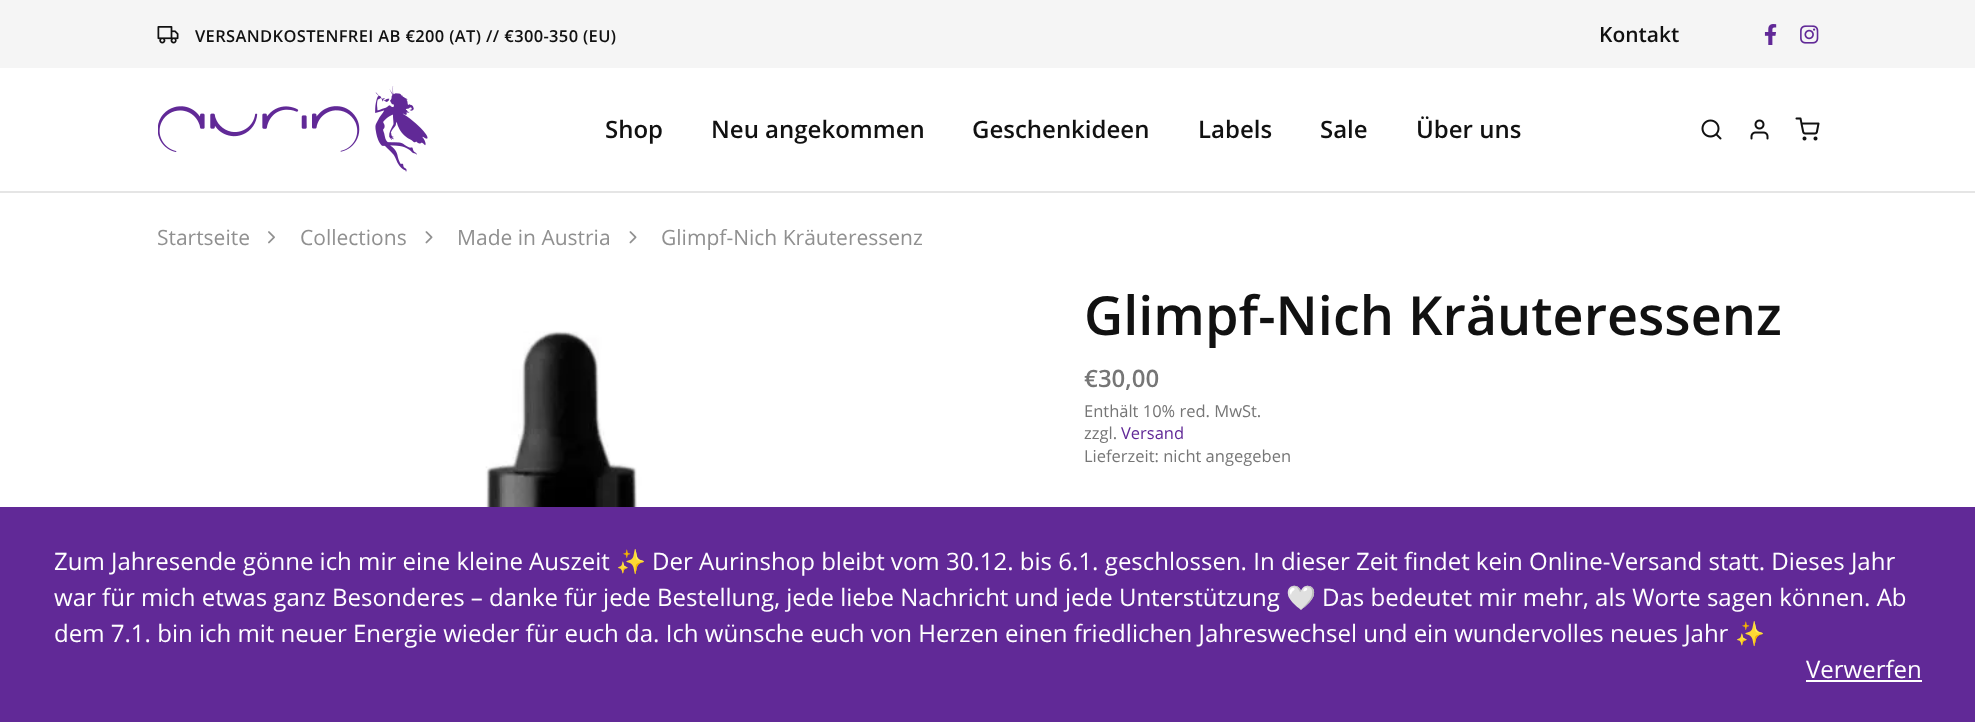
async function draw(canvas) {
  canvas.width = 1975;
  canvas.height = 722;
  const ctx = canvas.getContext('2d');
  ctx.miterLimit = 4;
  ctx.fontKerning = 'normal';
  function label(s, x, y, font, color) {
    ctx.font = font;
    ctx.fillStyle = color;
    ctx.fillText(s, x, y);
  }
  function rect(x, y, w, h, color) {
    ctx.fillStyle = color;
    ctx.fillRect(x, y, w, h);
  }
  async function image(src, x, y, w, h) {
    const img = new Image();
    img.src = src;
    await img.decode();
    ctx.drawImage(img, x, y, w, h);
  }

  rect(0, 0, 1975, 722, '#fff');
  rect(0, 0, 1975, 68, '#f5f5f5');
  await image('assets/img1.png', 157, 26, 22, 18);
  ctx.letterSpacing = '0.35px';
  label('VERSANDKOSTENFREI AB €200 (AT) // €300-350 (EU)', 195, 42, '600 16.5px Open Sans', '#111');
  ctx.letterSpacing = '0px';
  label('Kontakt', 1599, 42, '600 21px Open Sans', '#111');
  await image('assets/img2.png', 1764, 24, 13, 21);
  await image('assets/img3.png', 1800, 25, 19, 19);
  rect(0, 191, 1975, 2, '#e5e5e5');
  await image('assets/img4.png', 158, 86, 270, 86);
  label('Shop', 605, 138, '600 24px Open Sans', '#111');
  label('Neu angekommen', 711, 138, '600 24px Open Sans', '#111');
  label('Geschenkideen', 972, 138, '600 24px Open Sans', '#111');
  label('Labels', 1198, 138, '600 24px Open Sans', '#111');
  label('Sale', 1320, 138, '600 24px Open Sans', '#111');
  label('Über uns', 1416, 138, '600 24px Open Sans', '#111');
  await image('assets/img5.png', 1701, 119, 21, 21);
  await image('assets/img6.png', 1750, 119, 19, 21);
  await image('assets/img7.png', 1795, 117, 25, 24);
  label('Startseite', 157, 245, '21px Open Sans', '#909090');
  await image('assets/img8.png', 268, 231, 7, 13);
  label('Collections', 300, 245, '21px Open Sans', '#909090');
  await image('assets/img9.png', 425, 231, 8, 13);
  label('Made in Austria', 457, 245, '21px Open Sans', '#909090');
  await image('assets/img9.png', 629, 231, 8, 13);
  label('Glimpf-Nich Kräuteressenz', 661, 245, '21px Open Sans', '#909090');
  await image('assets/img10.png', 447, 331, 233, 176);
  label('Glimpf-Nich Kräuteressenz', 1084, 335, '600 54px Open Sans', '#111');
  label('€30,00', 1084, 387, '600 24px Open Sans', '#767676');
  label('Enthält 10% red. MwSt.', 1084, 417, '16.5px Open Sans', '#767676');
  label('zzgl.', 1084, 439, '16.5px Open Sans', '#767676');
  label('Versand', 1121, 439, '16.5px Open Sans', '#612997');
  label('Lieferzeit: nicht angegeben', 1084, 462, '16.5px Open Sans', '#767676');
  rect(0, 507, 1975, 215, '#612997');
  label('Zum Jahresende gönne ich mir eine kleine Auszeit', 54, 570, '24px Open Sans', '#fff');
  label('✨', 616, 570, '24px Noto Color Emoji', '#fff');
  label('Der Aurinshop bleibt vom 30.12. bis 6.1. geschlossen. In dieser Zeit findet kein Online-Versand statt. Dieses Jahr', 652, 570, '24px Open Sans', '#fff');
  label('war für mich etwas ganz Besonderes – danke für jede Bestellung, jede liebe Nachricht und jede Unterstützung', 54, 606, '24px Open Sans', '#fff');
  label('🤍', 1286, 606, '24px Noto Color Emoji', '#fff');
  label('Das bedeutet mir mehr, als Worte sagen können. Ab', 1322, 606, '24px Open Sans', '#fff');
  label('dem 7.1. bin ich mit neuer Energie wieder für euch da. Ich wünsche euch von Herzen einen friedlichen Jahreswechsel und ein wundervolles neues Jahr', 54, 642, '24px Open Sans', '#fff');
  label('✨', 1735, 642, '24px Noto Color Emoji', '#fff');
  label('Verwerfen', 1806, 678, '24px Open Sans', '#fff');
  rect(1806, 680, 116, 2, '#fff');
}

draw(document.querySelector('canvas'));
